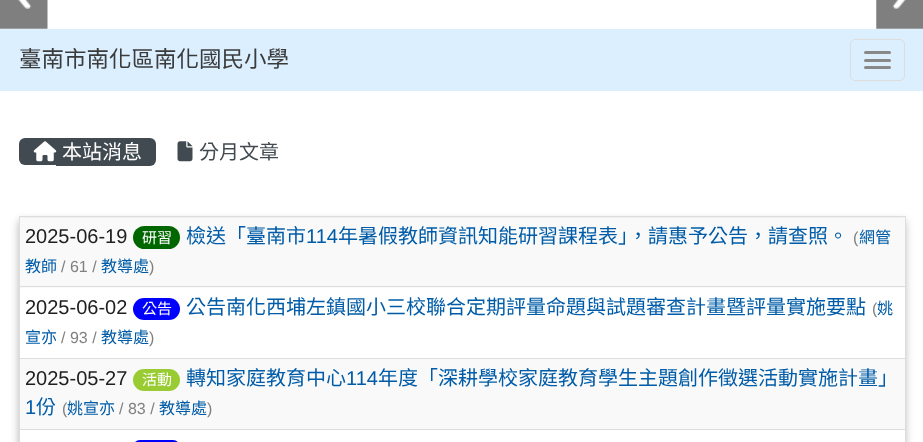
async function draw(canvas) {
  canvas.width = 923;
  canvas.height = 442;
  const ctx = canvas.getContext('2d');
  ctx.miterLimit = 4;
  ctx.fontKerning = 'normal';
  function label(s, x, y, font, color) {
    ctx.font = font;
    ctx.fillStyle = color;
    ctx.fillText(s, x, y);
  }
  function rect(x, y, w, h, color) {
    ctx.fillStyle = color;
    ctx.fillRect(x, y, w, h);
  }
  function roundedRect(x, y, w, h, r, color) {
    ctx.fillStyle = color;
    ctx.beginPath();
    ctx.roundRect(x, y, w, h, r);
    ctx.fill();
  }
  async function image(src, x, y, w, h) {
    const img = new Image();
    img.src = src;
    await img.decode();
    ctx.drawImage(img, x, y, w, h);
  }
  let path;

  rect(0, 0, 923, 442, '#fff');
  await image('assets/img1.png', 0, 0, 48, 29);
  await image('assets/img2.png', 876, 0, 47, 29);
  rect(0, 29, 923, 62, '#dbefff');
  label('臺南市南化區南化國民小學', 19, 67, '22.5px Noto Sans CJK TC', '#3b3b3b');
  ctx.beginPath();
  ctx.roundRect(850.5, 39.5, 54, 41, 4.5);
  ctx.strokeStyle = '#ddd';
  ctx.stroke();
  roundedRect(864, 51, 27, 3, 1.5, '#888');
  roundedRect(864, 59, 27, 3, 1.5, '#888');
  roundedRect(864, 66, 27, 3, 1.5, '#888');
  ctx.fillStyle = '#404a50';
  ctx.beginPath();
  ctx.roundRect(19, 138, 37, 27, [6, 0, 0, 6]);
  ctx.fill();
  ctx.beginPath();
  ctx.roundRect(56, 138, 100, 28, [0, 6, 6, 0]);
  ctx.fill();
  await image('assets/img3.png', 33, 141, 24, 21);
  label('本站消息', 62, 159, '20px Noto Sans CJK TC', '#fff');
  await image('assets/img4.png', 177, 141, 16, 21);
  label('分月文章', 199, 159, '20px Noto Sans CJK TC', '#404a50');
  ctx.save();
  path = new Path2D('M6 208H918V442H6ZM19 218H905V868H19Z');
  ctx.clip(path, 'evenodd');
  ctx.fillStyle = '#0000004d';
  ctx.filter = 'blur(4px)';
  ctx.beginPath();
  ctx.rect(19, 221, 886, 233);
  ctx.fill();
  ctx.filter = 'none';
  ctx.restore();
  rect(20, 218, 885, 70, '#f9f9f9');
  rect(19, 216, 887, 1, '#ddd');
  rect(905, 216, 1, 10, '#ddd');
  rect(19, 286, 887, 1, '#ddd');
  rect(19, 358, 887, 1, '#ddd');
  rect(19, 429, 887, 1, '#ddd');
  rect(19, 429, 1, 13, '#ddd');
  rect(19, 358, 1, 72, '#ddd');
  rect(19, 286, 1, 73, '#ddd');
  rect(19, 216, 1, 72, '#ddd');
  label('2025-06-19', 25, 243, '20px Liberation Sans', '#202020');
  roundedRect(133, 226, 47, 23, 11.5, '#060');
  label('研習', 142, 243, '15px Noto Sans CJK TC', '#fff');
  label('檢送「臺南市', 186, 243, '20px Noto Sans CJK TC', '#005ca8');
  label('114', 306, 243, '20px Liberation Sans', '#005ca8');
  label('年暑假教師資訊知能研習課程表」，請惠予公告，請查照。', 338, 243, '20px Noto Sans CJK TC', '#005ca8');
  label('(', 853, 243, '16px Liberation Sans', '#808080');
  label('網管', 859, 243, '16px Noto Sans CJK TC', '#005ca8');
  label('教師', 25, 272, '16px Noto Sans CJK TC', '#005ca8');
  label('/ 61 /', 61, 272, '16px Liberation Sans', '#808080');
  label('教導處', 101, 272, '16px Noto Sans CJK TC', '#005ca8');
  label(')', 149, 272, '16px Liberation Sans', '#808080');
  label('2025-06-02', 25, 314, '20px Liberation Sans', '#202020');
  roundedRect(133, 298, 47, 22, 11, '#00f');
  label('公告', 142, 314, '15px Noto Sans CJK TC', '#fff');
  label('公告南化西埔左鎮國小三校聯合定期評量命題與試題審查計畫暨評量實施要點', 186, 314, '20px Noto Sans CJK TC', '#005ca8');
  label('(', 872, 314, '16px Liberation Sans', '#808080');
  label('姚', 877, 314, '16px Noto Sans CJK TC', '#005ca8');
  label('宣亦', 25, 343, '16px Noto Sans CJK TC', '#005ca8');
  label('/ 93 /', 61, 343, '16px Liberation Sans', '#808080');
  label('教導處', 101, 343, '16px Noto Sans CJK TC', '#005ca8');
  label(')', 149, 343, '16px Liberation Sans', '#808080');
  rect(20, 359, 885, 70, '#f9f9f9');
  label('2025-05-27', 25, 385, '20px Liberation Sans', '#202020');
  roundedRect(133, 369, 47, 22, 11, '#9c3');
  label('活動', 142, 385, '15px Noto Sans CJK TC', '#fff');
  label('轉知家庭教育中心', 186, 385, '20px Noto Sans CJK TC', '#005ca8');
  label('114', 346, 385, '20px Liberation Sans', '#005ca8');
  label('年度「深耕學校家庭教育學生主題創作徵選活動實施計畫」', 378, 385, '20px Noto Sans CJK TC', '#005ca8');
  label('1', 25, 414, '20px Liberation Sans', '#005ca8');
  label('份', 36, 414, '20px Noto Sans CJK TC', '#005ca8');
  label('(', 62, 414, '16px Liberation Sans', '#808080');
  label('姚宣亦', 67, 414, '16px Noto Sans CJK TC', '#005ca8');
  label('/ 83 /', 119, 414, '16px Liberation Sans', '#808080');
  label('教導處', 159, 414, '16px Noto Sans CJK TC', '#005ca8');
  label(')', 207, 414, '16px Liberation Sans', '#808080');
  roundedRect(133, 440, 47, 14, 11.5, '#00f');
}

draw(document.querySelector('canvas'));
